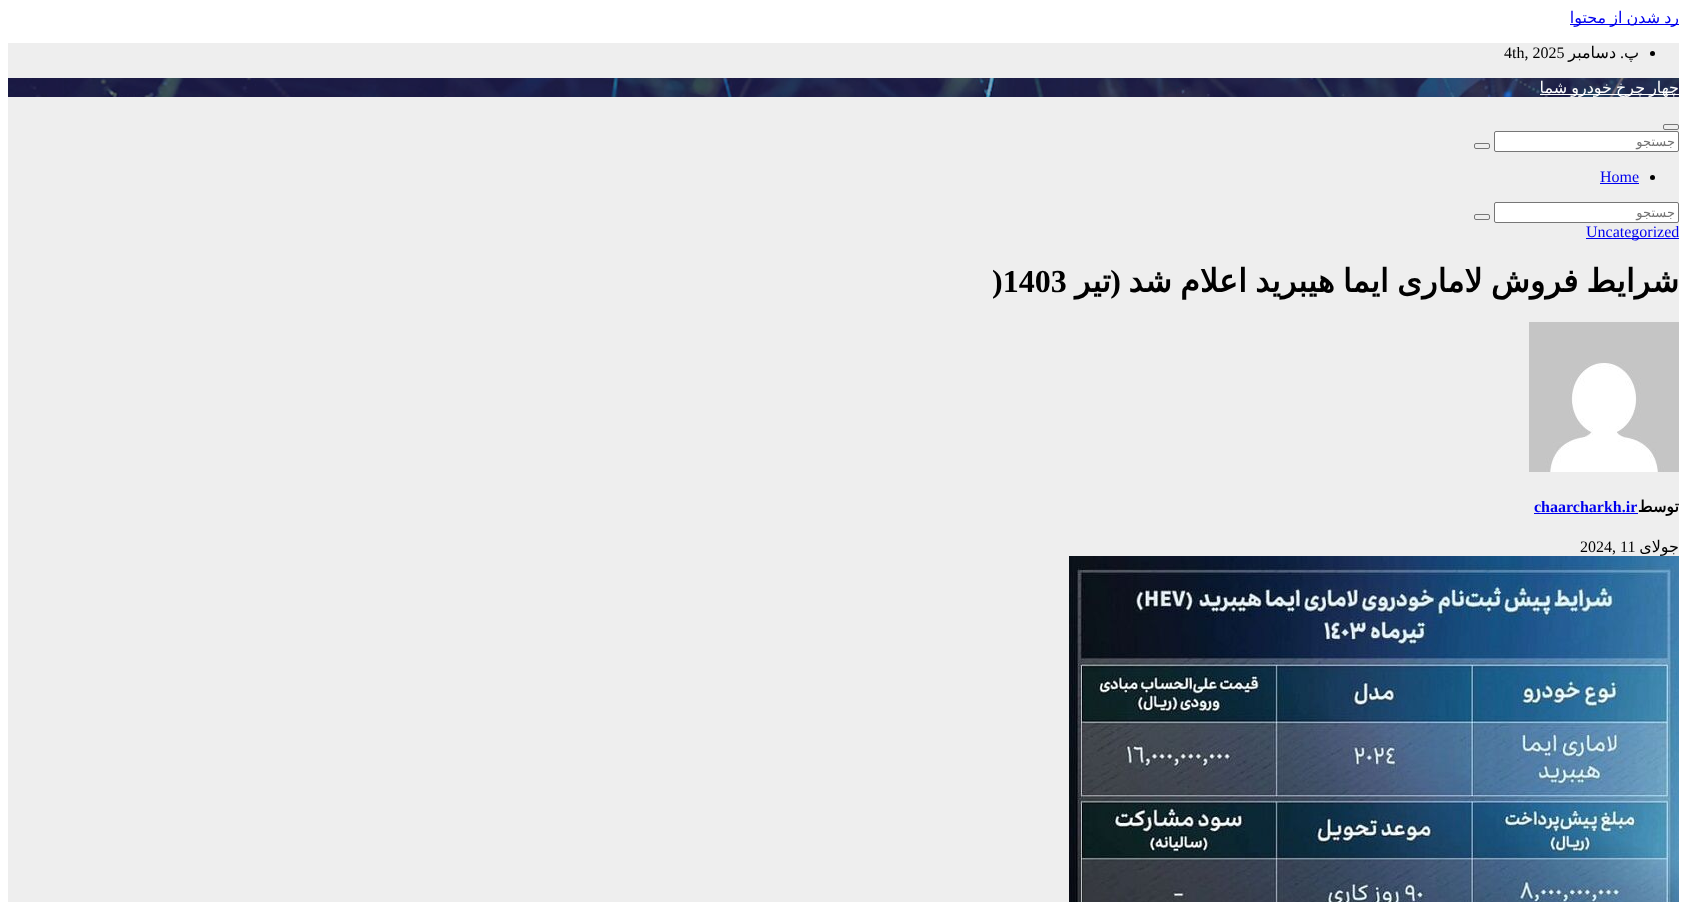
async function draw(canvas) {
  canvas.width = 1687;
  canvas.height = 902;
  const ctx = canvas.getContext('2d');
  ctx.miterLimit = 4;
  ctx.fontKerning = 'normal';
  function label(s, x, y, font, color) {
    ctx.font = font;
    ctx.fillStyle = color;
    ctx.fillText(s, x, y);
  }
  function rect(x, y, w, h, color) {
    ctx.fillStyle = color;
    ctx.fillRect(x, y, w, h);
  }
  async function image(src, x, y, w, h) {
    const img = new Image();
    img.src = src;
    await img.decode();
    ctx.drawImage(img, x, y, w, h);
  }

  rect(0, 0, 1687, 902, '#fff');
  rect(1570, 24, 109, 1, '#00e');
  ctx.wordSpacing = '-1px';
  ctx.direction = 'rtl';
  label('رد شدن از محتوا', 1679, 23, '16px DejaVu Sans', '#00e');
  rect(8, 43, 1671, 859, '#eee');
  ctx.fillStyle = '#000';
  ctx.beginPath();
  ctx.arc(1652.5, 53.5, 2.5, 0, 2 * Math.PI);
  ctx.fill();
  ctx.wordSpacing = '0px';
  label('پ', 1639, 58, '16px DejaVu Sans', '#000');
  label('.', 1624, 58, '16px Liberation Serif', '#000');
  label('دسامبر', 1616, 58, '16px DejaVu Sans', '#000');
  ctx.direction = 'ltr';
  label('4th, 2025', 1504, 58, '16px Liberation Serif', '#000');
  await image('assets/img1.png', 8, 78, 1671, 19);
  rect(1540, 94, 139, 1, '#fff');
  ctx.wordSpacing = '-1px';
  ctx.direction = 'rtl';
  label('چهار چرخ خودرو شما', 1679, 93, '16px DejaVu Sans', '#fff');
  ctx.beginPath();
  ctx.roundRect(1663.5, 124.5, 15, 5, 1.5);
  ctx.strokeStyle = '#767676';
  ctx.stroke();
  ctx.beginPath();
  ctx.roundRect(1494.5, 131.5, 184, 20, 1.5);
  ctx.fill();
  ctx.stroke();
  ctx.wordSpacing = '0px';
  label('جستجو', 1675, 146, '13px DejaVu Sans', '#757575');
  ctx.beginPath();
  ctx.roundRect(1474.5, 143.5, 15, 5, 1.5);
  ctx.stroke();
  ctx.fillStyle = '#000';
  ctx.beginPath();
  ctx.arc(1652.5, 177.5, 2.5, 0, 2 * Math.PI);
  ctx.fill();
  ctx.direction = 'ltr';
  label('Home', 1600, 182, '16px Liberation Serif', '#00e');
  rect(1600, 183, 39, 1, '#00e');
  ctx.fillStyle = '#fff';
  ctx.beginPath();
  ctx.roundRect(1494.5, 202.5, 184, 20, 1.5);
  ctx.fill();
  ctx.stroke();
  ctx.direction = 'rtl';
  label('جستجو', 1675, 217, '13px DejaVu Sans', '#757575');
  ctx.beginPath();
  ctx.roundRect(1474.5, 214.5, 15, 5, 1.5);
  ctx.stroke();
  rect(1586, 238, 93, 1, '#00e');
  ctx.direction = 'ltr';
  label('Uncategorized', 1586, 237, '16px Liberation Serif', '#00e');
  ctx.wordSpacing = '-2px';
  ctx.direction = 'rtl';
  label('شرایط فروش لاماری ایما هیبرید اعلام شد', 1679, 292, 'bold 32px DejaVu Sans', '#000');
  ctx.wordSpacing = '0px';
  label('(', 1121, 292, 'bold 32px Liberation Serif', '#000');
  label('تیر', 1111, 292, 'bold 32px DejaVu Sans', '#000');
  ctx.direction = 'ltr';
  label(')1403', 992, 292, 'bold 32px Liberation Serif', '#000');
  await image('assets/img2.png', 1529, 322, 150, 150);
  ctx.direction = 'rtl';
  label('توسط', 1679, 512, 'bold 16px DejaVu Sans', '#000');
  ctx.direction = 'ltr';
  label('chaarcharkh.ir', 1534, 512, 'bold 16px Liberation Serif', '#00e');
  rect(1534, 513, 104, 1, '#00e');
  ctx.direction = 'rtl';
  label('جولای', 1679, 552, '16px DejaVu Sans', '#000');
  ctx.direction = 'ltr';
  label('2024, 11', 1580, 552, '16px Liberation Serif', '#000');
  await image('assets/img3.png', 1069, 556, 610, 346);
}

draw(document.querySelector('canvas'));
